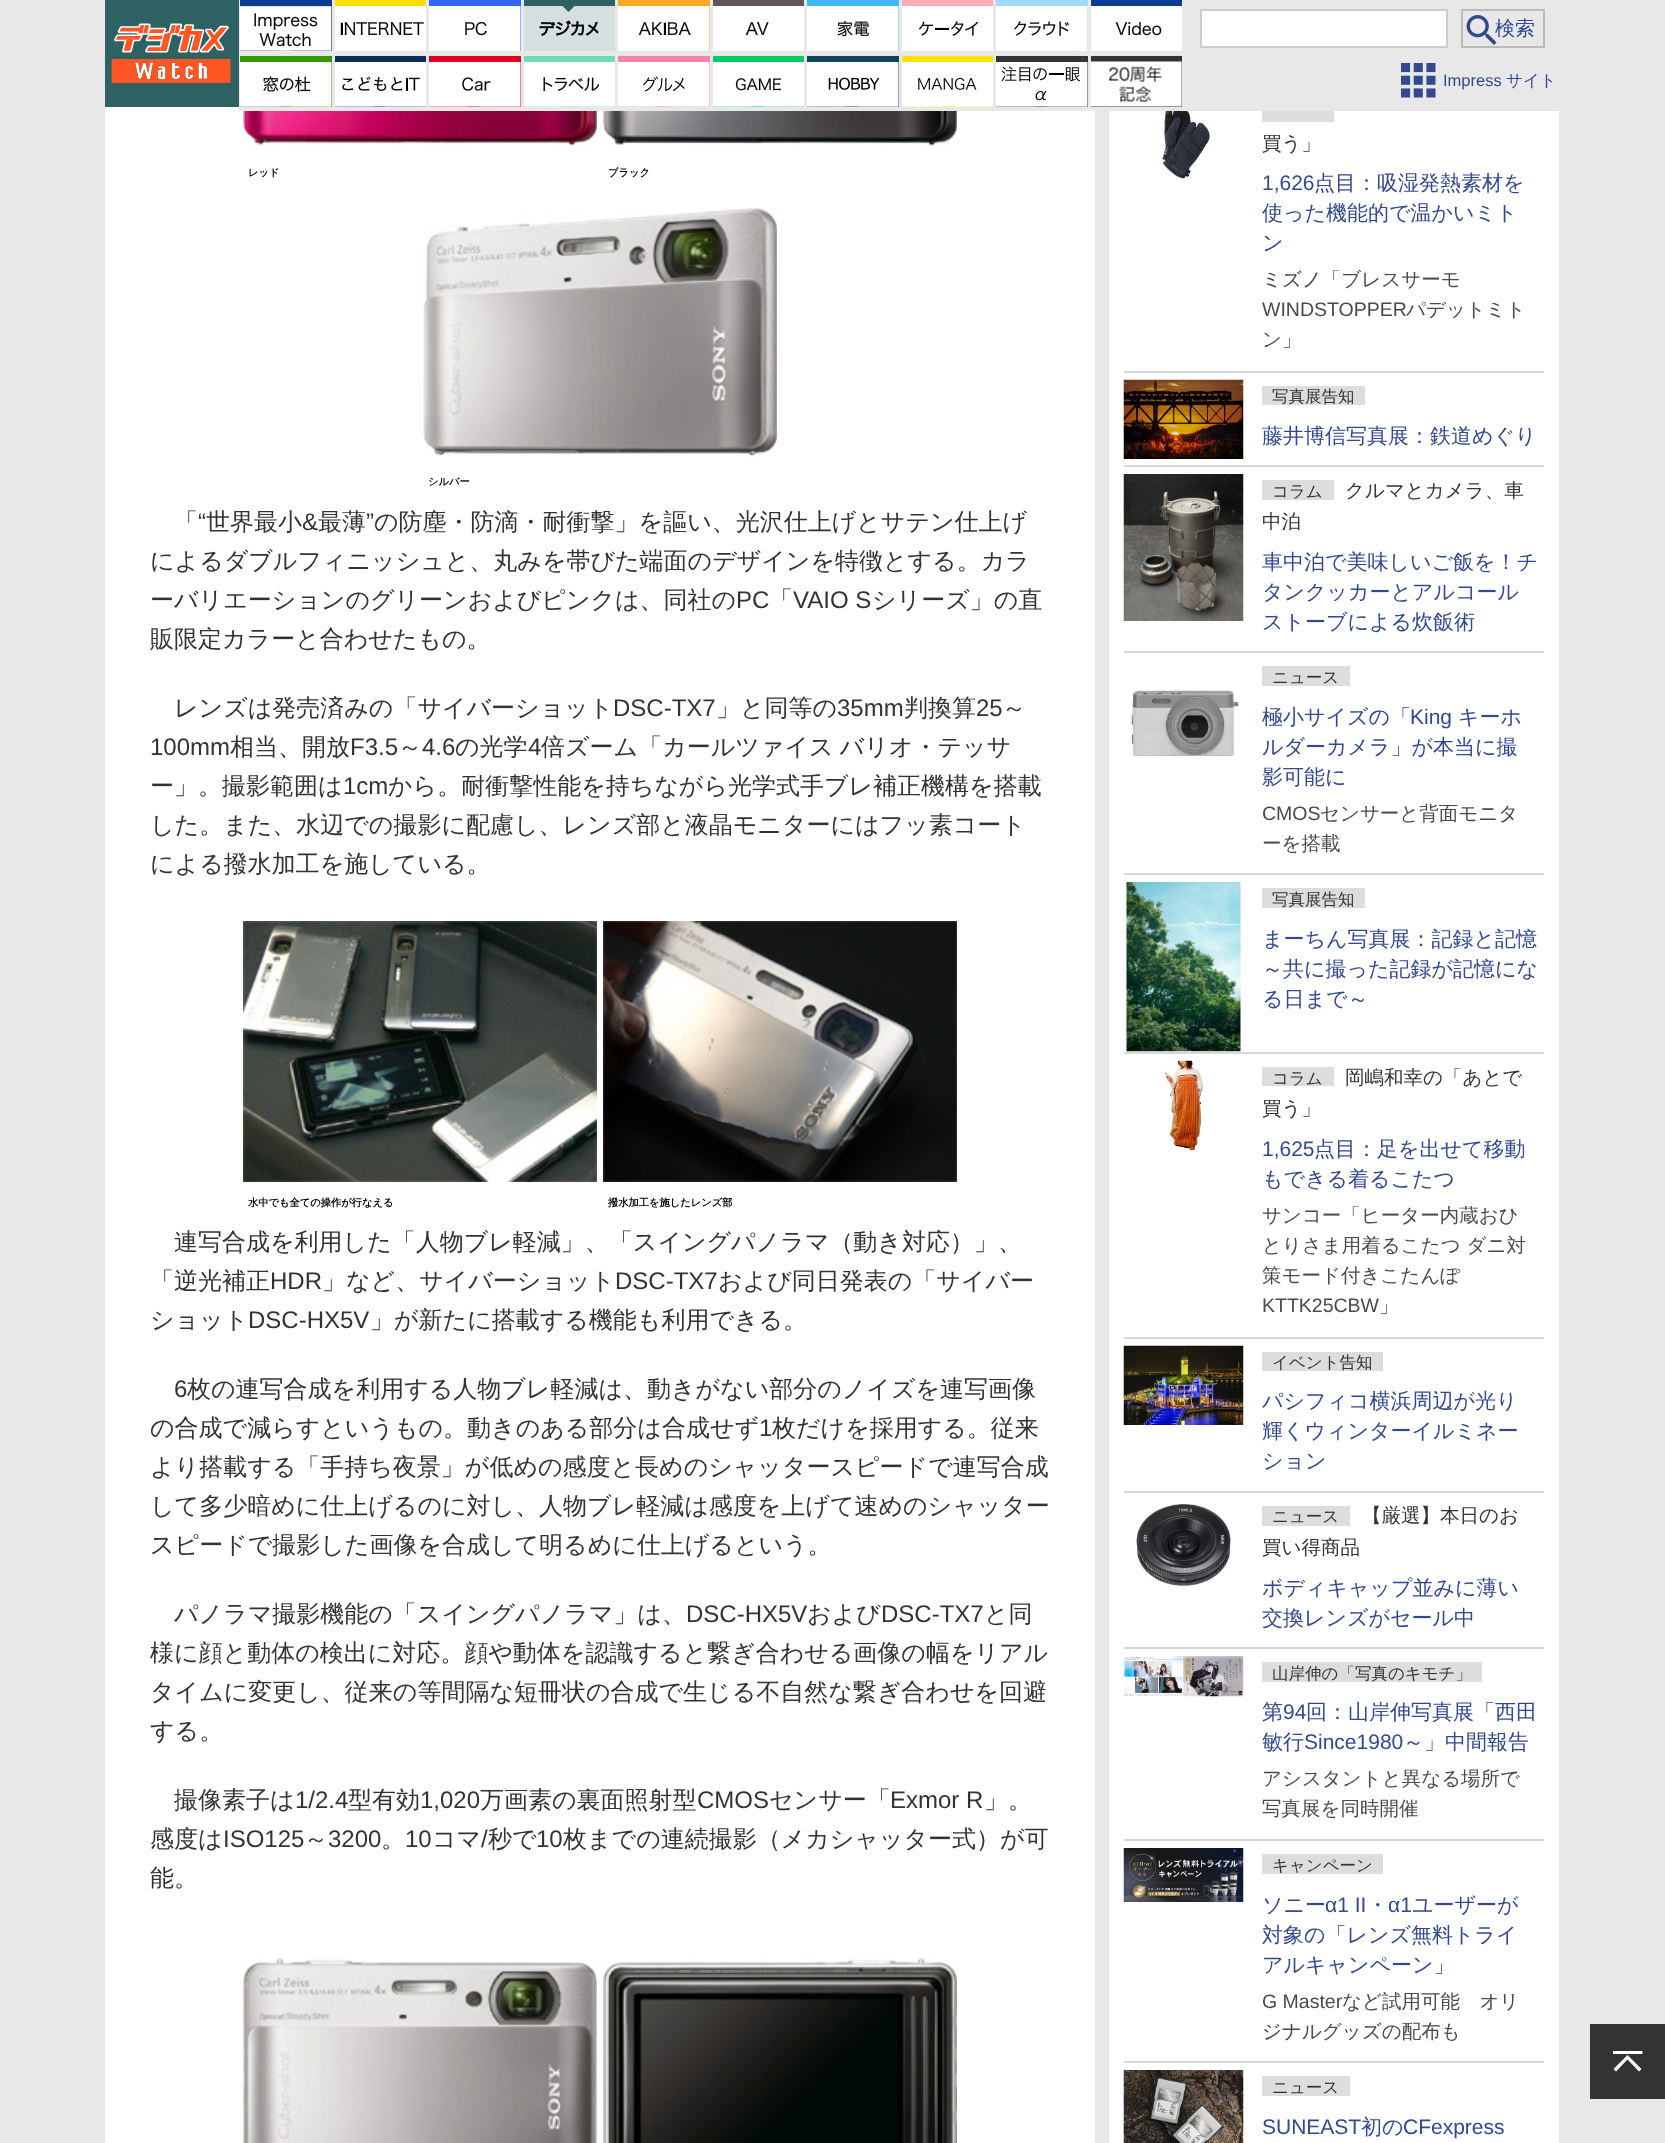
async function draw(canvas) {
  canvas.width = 1665;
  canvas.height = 2143;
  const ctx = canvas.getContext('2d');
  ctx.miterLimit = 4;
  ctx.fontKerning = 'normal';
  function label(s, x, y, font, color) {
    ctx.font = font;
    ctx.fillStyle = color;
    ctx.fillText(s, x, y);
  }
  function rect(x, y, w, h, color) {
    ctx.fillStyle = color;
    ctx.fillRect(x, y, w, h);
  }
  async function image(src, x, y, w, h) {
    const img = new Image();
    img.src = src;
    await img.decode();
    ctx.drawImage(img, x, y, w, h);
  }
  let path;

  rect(0, 0, 1665, 2143, '#e8e8e8');
  rect(105, 0, 134, 107, '#2e6162');
  await image('assets/img1.png', 111, 23, 120, 60);
  rect(105, 107, 990, 2036, '#fff');
  rect(239, 107, 856, 4, '#e8e8e8');
  rect(240, 0, 92, 51, '#0d3b91');
  await image('assets/img2.png', 240, 6, 92, 45);
  rect(335, 0, 91, 6, '#ffde00');
  await image('assets/img3.png', 335, 6, 91, 45);
  rect(429, 0, 92, 51, '#36f');
  await image('assets/img4.png', 429, 6, 92, 45);
  rect(524, 0, 91, 51, '#2e6162');
  await image('assets/img5.png', 524, 6, 91, 45);
  rect(618, 0, 92, 51, '#ffa824');
  await image('assets/img6.png', 618, 6, 92, 45);
  rect(713, 0, 91, 6, '#5e5858');
  await image('assets/img7.png', 713, 6, 91, 45);
  rect(807, 0, 92, 51, '#42b6ff');
  await image('assets/img8.png', 807, 6, 92, 45);
  rect(902, 0, 91, 6, '#ffacb7');
  await image('assets/img9.png', 902, 6, 91, 45);
  rect(996, 0, 92, 51, '#9fd9f6');
  await image('assets/img10.png', 996, 6, 92, 45);
  rect(1091, 0, 91, 6, '#0d3b91');
  await image('assets/img11.png', 1091, 6, 91, 45);
  ctx.fillStyle = '#fff';
  ctx.beginPath();
  ctx.rect(1201, 10, 246, 37);
  ctx.fill();
  ctx.strokeStyle = '#ccc';
  ctx.lineWidth = 2;
  ctx.stroke();
  await image('assets/img12.png', 1466, 15, 31, 30);
  ctx.strokeStyle = '#bbb';
  ctx.strokeRect(1462, 10, 82, 37);
  label('検索', 1495, 35, '500 20px WenQuanYi Zen Hei', '#33498e');
  rect(240, 56, 92, 51, '#390');
  await image('assets/img13.png', 240, 62, 92, 45);
  rect(335, 56, 91, 51, '#102c54');
  await image('assets/img14.png', 335, 62, 91, 45);
  rect(429, 56, 92, 51, '#e30121');
  await image('assets/img15.png', 429, 62, 92, 45);
  rect(524, 56, 91, 51, '#6edab8');
  await image('assets/img16.png', 524, 62, 91, 45);
  rect(618, 56, 92, 51, '#f583ae');
  await image('assets/img17.png', 618, 62, 92, 45);
  rect(713, 56, 91, 51, '#0c6');
  await image('assets/img18.png', 713, 62, 91, 45);
  rect(807, 56, 92, 51, '#0e4459');
  await image('assets/img19.png', 807, 62, 92, 45);
  rect(902, 56, 91, 51, '#ffe200');
  await image('assets/img20.png', 902, 62, 91, 45);
  rect(996, 56, 92, 51, '#333');
  await image('assets/img21.png', 996, 62, 92, 45);
  rect(1091, 56, 91, 51, '#333');
  await image('assets/img22.png', 1090, 61, 92, 46);
  await image('assets/img23.png', 1401, 63, 35, 35);
  label('Impress', 1443, 86, '16.5px Liberation Sans', '#33498e');
  label('サイト', 1506, 86, '500 16.5px WenQuanYi Zen Hei', '#33498e');
  await image('assets/img24.png', 243, 111, 354, 35);
  await image('assets/img25.png', 603, 111, 354, 35);
  label('レッド', 248, 176, 'bold 10.25px WenQuanYi Zen Hei', '#000');
  label('ブラック', 608, 176, 'bold 10.25px WenQuanYi Zen Hei', '#000');
  await image('assets/img26.png', 423, 208, 354, 249);
  label('シルバー', 428, 485, 'bold 10.25px WenQuanYi Zen Hei', '#000');
  label('「', 174, 530, '500 24px WenQuanYi Zen Hei', '#333');
  label('“', 198, 530, '24px Liberation Sans', '#333');
  label('世界最小', 206, 530, '500 24px WenQuanYi Zen Hei', '#333');
  label('&', 302, 530, '24px Liberation Sans', '#333');
  label('最薄', 318, 530, '500 24px WenQuanYi Zen Hei', '#333');
  label('”', 366, 530, '24px Liberation Sans', '#333');
  label('の防塵・防滴・耐衝撃」を謳い、光沢仕上げとサテン仕上げ', 374, 530, '500 24px WenQuanYi Zen Hei', '#333');
  label('によるダブルフィニッシュと、丸みを帯びた端面のデザインを特徴とする。カラ', 150, 569, '500 24px WenQuanYi Zen Hei', '#333');
  label('ーバリエーションのグリーンおよびピンクは、同社の', 150, 608, '500 24px WenQuanYi Zen Hei', '#333');
  label('PC', 736, 608, '24px Liberation Sans', '#333');
  label('「', 769, 608, '500 24px WenQuanYi Zen Hei', '#333');
  label('VAIO S', 793, 608, '24px Liberation Sans', '#333');
  label('シリーズ」の直', 872, 608, '500 24px WenQuanYi Zen Hei', '#333');
  label('販限定カラーと合わせたもの。', 150, 647, '500 24px WenQuanYi Zen Hei', '#333');
  label('レンズは発売済みの「サイバーショット', 174, 716, '500 24px WenQuanYi Zen Hei', '#333');
  label('DSC-TX7', 613, 716, '24px Liberation Sans', '#333');
  label('」と同等の', 716, 716, '500 24px WenQuanYi Zen Hei', '#333');
  label('35mm', 837, 716, '24px Liberation Sans', '#333');
  label('判換算', 904, 716, '500 24px WenQuanYi Zen Hei', '#333');
  label('25', 976, 716, '24px Liberation Sans', '#333');
  label('～', 1002, 716, '500 24px WenQuanYi Zen Hei', '#333');
  label('100mm', 150, 755, '24px Liberation Sans', '#333');
  label('相当、開放', 230, 755, '500 24px WenQuanYi Zen Hei', '#333');
  label('F3.5', 350, 755, '24px Liberation Sans', '#333');
  label('～', 398, 755, '500 24px WenQuanYi Zen Hei', '#333');
  label('4.6', 422, 755, '24px Liberation Sans', '#333');
  label('の光学', 455, 755, '500 24px WenQuanYi Zen Hei', '#333');
  label('4', 528, 755, '24px Liberation Sans', '#333');
  ctx.wordSpacing = '-1px';
  label('倍ズーム「カールツァイス バリオ・テッサ', 541, 755, '500 24px WenQuanYi Zen Hei', '#333');
  ctx.wordSpacing = '0px';
  label('ー」。撮影範囲は', 150, 794, '500 24px WenQuanYi Zen Hei', '#333');
  label('1cm', 343, 794, '24px Liberation Sans', '#333');
  label('から。耐衝撃性能を持ちながら光学式手ブレ補正機構を搭載', 388, 794, '500 24px WenQuanYi Zen Hei', '#333');
  label('した。また、水辺での撮影に配慮し、レンズ部と液晶モニターにはフッ素コート', 150, 833, '500 24px WenQuanYi Zen Hei', '#333');
  label('による撥水加工を施している。', 150, 872, '500 24px WenQuanYi Zen Hei', '#333');
  await image('assets/img27.png', 243, 921, 354, 261);
  await image('assets/img28.png', 603, 921, 354, 261);
  label('水中でも全ての操作が行なえる', 248, 1206, 'bold 10.25px WenQuanYi Zen Hei', '#000');
  label('撥水加工を施したレンズ部', 608, 1206, 'bold 10.25px WenQuanYi Zen Hei', '#000');
  label('連写合成を利用した「人物ブレ軽減」、「スイングパノラマ（動き対応）」、', 174, 1250, '500 24px WenQuanYi Zen Hei', '#333');
  label('「逆光補正', 150, 1289, '500 24px WenQuanYi Zen Hei', '#333');
  label('HDR', 270, 1289, '24px Liberation Sans', '#333');
  label('」など、サイバーショット', 322, 1289, '500 24px WenQuanYi Zen Hei', '#333');
  label('DSC-TX7', 615, 1289, '24px Liberation Sans', '#333');
  label('および同日発表の「サイバー', 718, 1289, '500 24px WenQuanYi Zen Hei', '#333');
  label('ショット', 150, 1328, '500 24px WenQuanYi Zen Hei', '#333');
  label('DSC-HX5V', 248, 1328, '24px Liberation Sans', '#333');
  label('」が新たに搭載する機能も利用できる。', 370, 1328, '500 24px WenQuanYi Zen Hei', '#333');
  label('6', 174, 1397, '24px Liberation Sans', '#333');
  label('枚の連写合成を利用する人物ブレ軽減は、動きがない部分のノイズを連写画像', 187, 1397, '500 24px WenQuanYi Zen Hei', '#333');
  label('の合成で減らすというもの。動きのある部分は合成せず', 150, 1436, '500 24px WenQuanYi Zen Hei', '#333');
  label('1', 759, 1436, '24px Liberation Sans', '#333');
  label('枚だけを採用する。従来', 772, 1436, '500 24px WenQuanYi Zen Hei', '#333');
  label('より搭載する「手持ち夜景」が低めの感度と長めのシャッタースピードで連写合成', 150, 1475, '500 24px WenQuanYi Zen Hei', '#333');
  label('して多少暗めに仕上げるのに対し、人物ブレ軽減は感度を上げて速めのシャッター', 150, 1514, '500 24px WenQuanYi Zen Hei', '#333');
  label('スピードで撮影した画像を合成して明るめに仕上げるという。', 150, 1553, '500 24px WenQuanYi Zen Hei', '#333');
  label('パノラマ撮影機能の「スイングパノラマ」は、', 174, 1622, '500 24px WenQuanYi Zen Hei', '#333');
  label('DSC-HX5V', 686, 1622, '24px Liberation Sans', '#333');
  label('および', 807, 1622, '500 24px WenQuanYi Zen Hei', '#333');
  label('DSC-TX7', 881, 1622, '24px Liberation Sans', '#333');
  label('と同', 984, 1622, '500 24px WenQuanYi Zen Hei', '#333');
  label('様に顔と動体の検出に対応。顔や動体を認識すると繋ぎ合わせる画像の幅をリアル', 150, 1661, '500 24px WenQuanYi Zen Hei', '#333');
  label('タイムに変更し、従来の等間隔な短冊状の合成で生じる不自然な繋ぎ合わせを回避', 150, 1700, '500 24px WenQuanYi Zen Hei', '#333');
  label('する。', 150, 1739, '500 24px WenQuanYi Zen Hei', '#333');
  label('撮像素子は', 174, 1808, '500 24px WenQuanYi Zen Hei', '#333');
  label('1/2.4', 295, 1808, '24px Liberation Sans', '#333');
  label('型有効', 348, 1808, '500 24px WenQuanYi Zen Hei', '#333');
  label('1,020', 420, 1808, '24px Liberation Sans', '#333');
  label('万画素の裏面照射型', 480, 1808, '500 24px WenQuanYi Zen Hei', '#333');
  label('CMOS', 697, 1808, '24px Liberation Sans', '#333');
  label('センサー「', 769, 1808, '500 24px WenQuanYi Zen Hei', '#333');
  label('Exmor R', 890, 1808, '24px Liberation Sans', '#333');
  label('」。', 984, 1808, '500 24px WenQuanYi Zen Hei', '#333');
  label('感度は', 150, 1847, '500 24px WenQuanYi Zen Hei', '#333');
  label('ISO125', 223, 1847, '24px Liberation Sans', '#333');
  label('～', 304, 1847, '500 24px WenQuanYi Zen Hei', '#333');
  label('3200', 328, 1847, '24px Liberation Sans', '#333');
  label('10', 405, 1847, '24px Liberation Sans', '#333');
  label('コマ', 432, 1847, '500 24px WenQuanYi Zen Hei', '#333');
  label('/', 481, 1847, '24px Liberation Sans', '#333');
  label('秒で', 488, 1847, '500 24px WenQuanYi Zen Hei', '#333');
  label('10', 536, 1847, '24px Liberation Sans', '#333');
  label('枚までの連続撮影（メカシャッター式）が可', 563, 1847, '500 24px WenQuanYi Zen Hei', '#333');
  label('。', 381, 1847, '500 24px WenQuanYi Zen Hei', '#333');
  label('能。', 150, 1886, '500 24px WenQuanYi Zen Hei', '#333');
  await image('assets/img29.png', 243, 1958, 354, 185);
  await image('assets/img30.png', 603, 1958, 354, 185);
  rect(1109, 111, 450, 2032, '#fff');
  rect(1124, 371, 420, 2, '#d8d8d8');
  await image('assets/img31.png', 1161, 111, 49, 68);
  rect(1262, 111, 72, 11, '#ddd');
  label('買う」', 1262, 150, '500 19.5px WenQuanYi Zen Hei', '#333');
  label('1,626', 1262, 190, '21px Liberation Sans', '#33498e');
  label('点目：吸湿発熱素材を', 1314, 190, '500 21px WenQuanYi Zen Hei', '#33498e');
  label('使った機能的で温かいミト', 1262, 220, '500 21px WenQuanYi Zen Hei', '#33498e');
  label('ン', 1262, 250, '500 21px WenQuanYi Zen Hei', '#33498e');
  label('ミズノ「ブレスサーモ', 1262, 286, '500 19.5px WenQuanYi Zen Hei', '#4a4a4a');
  label('WINDSTOPPER', 1262, 316, '19.5px Liberation Sans', '#4a4a4a');
  label('パデットミト', 1406, 316, '500 19.5px WenQuanYi Zen Hei', '#4a4a4a');
  label('ン」', 1262, 346, '500 19.5px WenQuanYi Zen Hei', '#4a4a4a');
  rect(1124, 465, 420, 2, '#d8d8d8');
  await image('assets/img32.png', 1123, 379, 121, 80);
  rect(1262, 386, 103, 19, '#ddd');
  label('写真展告知', 1272, 402, '500 16.5px WenQuanYi Zen Hei', '#333');
  label('藤井博信写真展：鉄道めぐり', 1262, 443, '500 21px WenQuanYi Zen Hei', '#33498e');
  rect(1124, 651, 420, 2, '#d8d8d8');
  await image('assets/img33.png', 1123, 474, 121, 147);
  rect(1262, 480, 72, 20, '#ddd');
  label('コラム', 1272, 497, '500 16.5px WenQuanYi Zen Hei', '#333');
  label('クルマとカメラ、車', 1345, 497, '500 19.5px WenQuanYi Zen Hei', '#333');
  label('中泊', 1262, 528, '500 19.5px WenQuanYi Zen Hei', '#333');
  label('車中泊で美味しいご飯を！チ', 1262, 569, '500 21px WenQuanYi Zen Hei', '#33498e');
  label('タンクッカーとアルコール', 1262, 599, '500 21px WenQuanYi Zen Hei', '#33498e');
  label('ストーブによる炊飯術', 1262, 629, '500 21px WenQuanYi Zen Hei', '#33498e');
  rect(1124, 873, 420, 2, '#d8d8d8');
  await image('assets/img34.png', 1131, 690, 108, 66);
  rect(1262, 666, 88, 20, '#ddd');
  label('ニュース', 1272, 683, '500 16.5px WenQuanYi Zen Hei', '#333');
  label('極小サイズの「', 1262, 724, '500 21px WenQuanYi Zen Hei', '#33498e');
  label('King', 1410, 724, '21px Liberation Sans', '#33498e');
  label('キーホ', 1458, 724, '500 21px WenQuanYi Zen Hei', '#33498e');
  label('ルダーカメラ」が本当に撮', 1262, 754, '500 21px WenQuanYi Zen Hei', '#33498e');
  label('影可能に', 1262, 784, '500 21px WenQuanYi Zen Hei', '#33498e');
  label('CMOS', 1262, 820, '19.5px Liberation Sans', '#4a4a4a');
  label('センサーと背面モニタ', 1320, 820, '500 19.5px WenQuanYi Zen Hei', '#4a4a4a');
  label('ーを搭載', 1262, 850, '500 19.5px WenQuanYi Zen Hei', '#4a4a4a');
  rect(1124, 1052, 420, 2, '#d8d8d8');
  await image('assets/img35.png', 1126, 882, 115, 170);
  rect(1262, 888, 103, 20, '#ddd');
  label('写真展告知', 1272, 905, '500 16.5px WenQuanYi Zen Hei', '#333');
  label('まーちん写真展：記録と記憶', 1262, 946, '500 21px WenQuanYi Zen Hei', '#33498e');
  label('～共に撮った記録が記憶にな', 1262, 976, '500 21px WenQuanYi Zen Hei', '#33498e');
  label('る日まで～', 1262, 1006, '500 21px WenQuanYi Zen Hei', '#33498e');
  rect(1124, 1337, 420, 2, '#d8d8d8');
  await image('assets/img36.png', 1161, 1060, 43, 91);
  rect(1262, 1067, 72, 19, '#ddd');
  label('コラム', 1272, 1084, '500 16.5px WenQuanYi Zen Hei', '#333');
  label('岡嶋和幸の「あとで', 1345, 1084, '500 19.5px WenQuanYi Zen Hei', '#333');
  label('買う」', 1262, 1115, '500 19.5px WenQuanYi Zen Hei', '#333');
  label('1,625', 1262, 1156, '21px Liberation Sans', '#33498e');
  label('点目：足を出せて移動', 1314, 1156, '500 21px WenQuanYi Zen Hei', '#33498e');
  label('もできる着るこたつ', 1262, 1186, '500 21px WenQuanYi Zen Hei', '#33498e');
  label('サンコー「ヒーター内蔵おひ', 1262, 1222, '500 19.5px WenQuanYi Zen Hei', '#4a4a4a');
  label('とりさま用着るこたつ ダニ対', 1262, 1252, '500 19.5px WenQuanYi Zen Hei', '#4a4a4a');
  label('策モード付きこたんぽ', 1262, 1282, '500 19.5px WenQuanYi Zen Hei', '#4a4a4a');
  label('KTTK25CBW', 1262, 1312, '19.5px Liberation Sans', '#4a4a4a');
  label('」', 1379, 1312, '500 19.5px WenQuanYi Zen Hei', '#4a4a4a');
  rect(1124, 1491, 420, 2, '#d8d8d8');
  await image('assets/img37.png', 1123, 1345, 121, 80);
  rect(1262, 1352, 121, 19, '#ddd');
  label('イベント告知', 1272, 1368, '500 16.5px WenQuanYi Zen Hei', '#333');
  label('パシフィコ横浜周辺が光り', 1262, 1408, '500 21px WenQuanYi Zen Hei', '#33498e');
  label('輝くウィンターイルミネー', 1262, 1438, '500 21px WenQuanYi Zen Hei', '#33498e');
  label('ション', 1262, 1468, '500 21px WenQuanYi Zen Hei', '#33498e');
  rect(1124, 1647, 420, 2, '#d8d8d8');
  await image('assets/img38.png', 1136, 1504, 95, 82);
  rect(1262, 1506, 88, 20, '#ddd');
  label('ニュース', 1272, 1522, '500 16.5px WenQuanYi Zen Hei', '#333');
  label('【厳選】本日のお', 1362, 1522, '500 19.5px WenQuanYi Zen Hei', '#333');
  label('買い得商品', 1262, 1554, '500 19.5px WenQuanYi Zen Hei', '#333');
  label('ボディキャップ並みに薄い', 1262, 1595, '500 21px WenQuanYi Zen Hei', '#33498e');
  label('交換レンズがセール中', 1262, 1625, '500 21px WenQuanYi Zen Hei', '#33498e');
  rect(1124, 1839, 420, 2, '#d8d8d8');
  await image('assets/img39.png', 1123, 1656, 121, 41);
  rect(1262, 1662, 220, 20, '#ddd');
  label('山岸伸の「写真のキモチ」', 1272, 1679, '500 16.5px WenQuanYi Zen Hei', '#333');
  label('第', 1262, 1719, '500 21px WenQuanYi Zen Hei', '#33498e');
  label('94', 1283, 1719, '21px Liberation Sans', '#33498e');
  label('回：山岸伸写真展「西田', 1306, 1719, '500 21px WenQuanYi Zen Hei', '#33498e');
  label('敏行', 1262, 1749, '500 21px WenQuanYi Zen Hei', '#33498e');
  label('Since1980', 1304, 1749, '21px Liberation Sans', '#33498e');
  label('～」中間報告', 1403, 1749, '500 21px WenQuanYi Zen Hei', '#33498e');
  label('アシスタントと異なる場所で', 1262, 1785, '500 19.5px WenQuanYi Zen Hei', '#4a4a4a');
  label('写真展を同時開催', 1262, 1815, '500 19.5px WenQuanYi Zen Hei', '#4a4a4a');
  rect(1124, 2061, 420, 2, '#d8d8d8');
  await image('assets/img40.png', 1123, 1848, 121, 54);
  rect(1262, 1854, 121, 20, '#ddd');
  label('キャンペーン', 1272, 1871, '500 16.5px WenQuanYi Zen Hei', '#333');
  label('ソニー', 1262, 1912, '500 21px WenQuanYi Zen Hei', '#33498e');
  label('α1 II', 1325, 1912, '21px Liberation Sans', '#33498e');
  label('・', 1367, 1912, '500 21px WenQuanYi Zen Hei', '#33498e');
  label('α1', 1388, 1912, '21px Liberation Sans', '#33498e');
  label('ユーザーが', 1412, 1912, '500 21px WenQuanYi Zen Hei', '#33498e');
  label('対象の「レンズ無料トライ', 1262, 1942, '500 21px WenQuanYi Zen Hei', '#33498e');
  label('アルキャンペーン」', 1262, 1972, '500 21px WenQuanYi Zen Hei', '#33498e');
  label('G Master', 1262, 2008, '19.5px Liberation Sans', '#4a4a4a');
  label('など試用可能　オリ', 1342, 2008, '500 19.5px WenQuanYi Zen Hei', '#4a4a4a');
  label('ジナルグッズの配布も', 1262, 2038, '500 19.5px WenQuanYi Zen Hei', '#4a4a4a');
  await image('assets/img41.png', 1123, 2070, 121, 73);
  rect(1262, 2076, 88, 20, '#ddd');
  label('ニュース', 1272, 2093, '500 16.5px WenQuanYi Zen Hei', '#333');
  label('SUNEAST', 1262, 2134, '21px Liberation Sans', '#33498e');
  label('初の', 1361, 2134, '500 21px WenQuanYi Zen Hei', '#33498e');
  label('CFexpress', 1403, 2134, '21px Liberation Sans', '#33498e');
  rect(1590, 2024, 75, 75, '#333');
  ctx.save();
  ctx.beginPath();
  ctx.rect(1613, 2051, 30, 21);
  ctx.clip();
  ctx.fillStyle = '#fff';
  path = new Path2D('M1612.5 2054H1642.5V2050.5H1612.5ZM1613.5 2069L1616 2071.5L1627.5 2059.5L1639 2071.5L1641.5 2069L1627.5 2055Z');
  ctx.fill(path, 'evenodd');
  ctx.restore();
}

draw(document.querySelector('canvas'));
